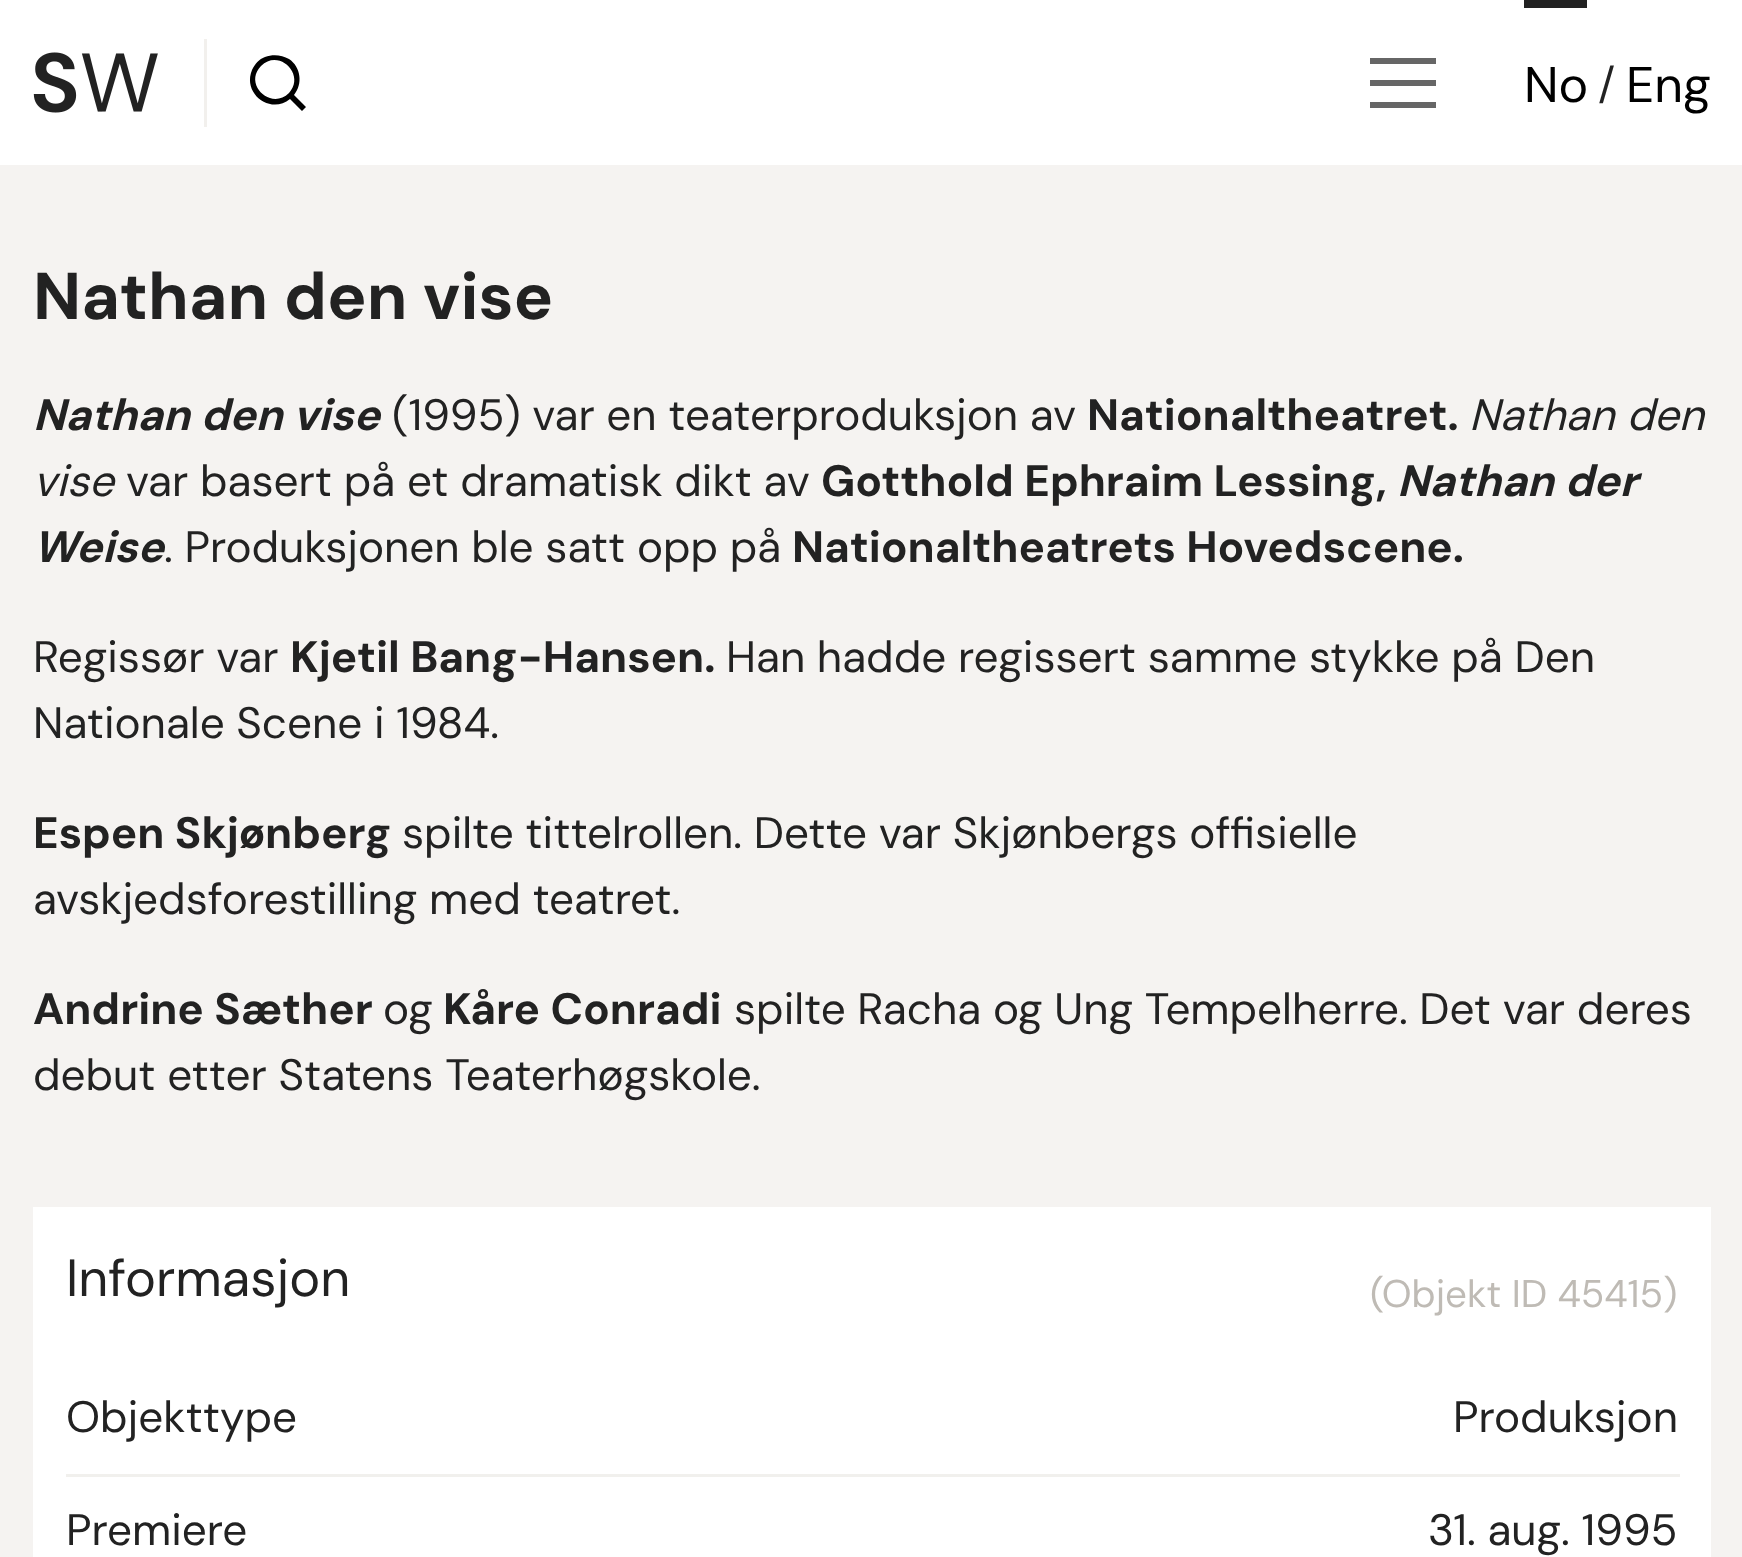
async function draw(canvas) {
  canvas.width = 1742;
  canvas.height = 1557;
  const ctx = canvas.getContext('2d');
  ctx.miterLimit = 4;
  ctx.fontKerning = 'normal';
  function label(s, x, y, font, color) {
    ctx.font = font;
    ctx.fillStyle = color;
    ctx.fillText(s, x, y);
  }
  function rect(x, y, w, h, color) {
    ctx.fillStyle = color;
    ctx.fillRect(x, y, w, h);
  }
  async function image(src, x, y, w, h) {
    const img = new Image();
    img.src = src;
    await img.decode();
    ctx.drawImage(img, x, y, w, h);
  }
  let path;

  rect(0, 0, 1742, 1557, '#fff');
  await image('assets/img1.png', 33, 52, 125, 61);
  rect(204, 39, 3, 88, '#f2f0ed');
  ctx.fillStyle = '#000';
  path = new Path2D('M294 95L306 107L302 111L290 99C271 115 242 94 252 70C255 64 259 59 265 57C273 54 282 55 289 59C301 67 303 84 294 95ZM289 93C306 75 279 48 261 66C243 84 271 111 289 93Z');
  ctx.fill(path);
  rect(1370, 58, 66, 6, '#666');
  rect(1370, 80, 66, 6, '#666');
  rect(1370, 102, 66, 6, '#666');
  rect(1524, 0, 63, 8, '#222');
  label('No', 1524, 102, '50px DM Sans', '#000');
  label('/', 1598, 99, '44px DM Sans', '#222');
  label('Eng', 1626, 102, '50px DM Sans', '#000');
  rect(0, 165, 1742, 1392, '#f5f3f1');
  label('Nathan den vise', 33, 319, 'bold 66px DM Sans', '#222');
  label('Nathan den vise', 33, 430, 'italic bold 44px DM Sans', '#222');
  label('(1995) var en teaterproduksjon av', 392, 430, '44px DM Sans', '#222');
  label('Nationaltheatret.', 1087, 430, 'bold 44px DM Sans', '#222');
  label('Nathan den', 1469, 430, 'italic 44px DM Sans', '#222');
  label('vise', 33, 496, 'italic 44px DM Sans', '#222');
  label('var basert på et dramatisk dikt av', 126, 496, '44px DM Sans', '#222');
  label('Gotthold Ephraim Lessing,', 821, 496, 'bold 44px DM Sans', '#222');
  label('Nathan der', 1397, 496, 'italic bold 44px DM Sans', '#222');
  label('Weise', 33, 562, 'italic bold 44px DM Sans', '#222');
  label('. Produksjonen ble satt opp på', 164, 562, '44px DM Sans', '#222');
  label('Nationaltheatrets Hovedscene.', 792, 562, 'bold 44px DM Sans', '#222');
  label('Regissør var', 33, 672, '44px DM Sans', '#222');
  label('Kjetil Bang-Hansen.', 290, 672, 'bold 44px DM Sans', '#222');
  label('Han hadde regissert samme stykke på Den', 726, 672, '44px DM Sans', '#222');
  label('Nationale Scene i 1984.', 33, 738, '44px DM Sans', '#222');
  label('Espen Skjønberg', 33, 848, 'bold 44px DM Sans', '#222');
  label('spilte tittelrollen. Dette var Skjønbergs offisielle', 402, 848, '44px DM Sans', '#222');
  label('avskjedsforestilling med teatret.', 33, 914, '44px DM Sans', '#222');
  label('Andrine Sæther', 33, 1024, 'bold 44px DM Sans', '#222');
  label('og', 383, 1024, '44px DM Sans', '#222');
  label('Kåre Conradi', 443, 1024, 'bold 44px DM Sans', '#222');
  label('spilte Racha og Ung Tempelherre. Det var deres', 734, 1024, '44px DM Sans', '#222');
  label('debut etter Statens Teaterhøgskole.', 33, 1090, '44px DM Sans', '#222');
  rect(33, 1207, 1678, 350, '#fff');
  label('Informasjon', 66, 1296, '52.25px DM Sans', '#222');
  label('(Objekt ID 45415)', 1370, 1307, '38.5px DM Sans', '#bfbbb5');
  rect(66, 1474, 1614, 3, '#f1f0ed');
  label('Objekttype', 66, 1432, '44px DM Sans', '#222');
  label('Produksjon', 1453, 1432, '44px DM Sans', '#222');
  label('Premiere', 66, 1545, '44px DM Sans', '#222');
  label('31. aug. 1995', 1428, 1545, '44px DM Sans', '#222');
}

draw(document.querySelector('canvas'));
